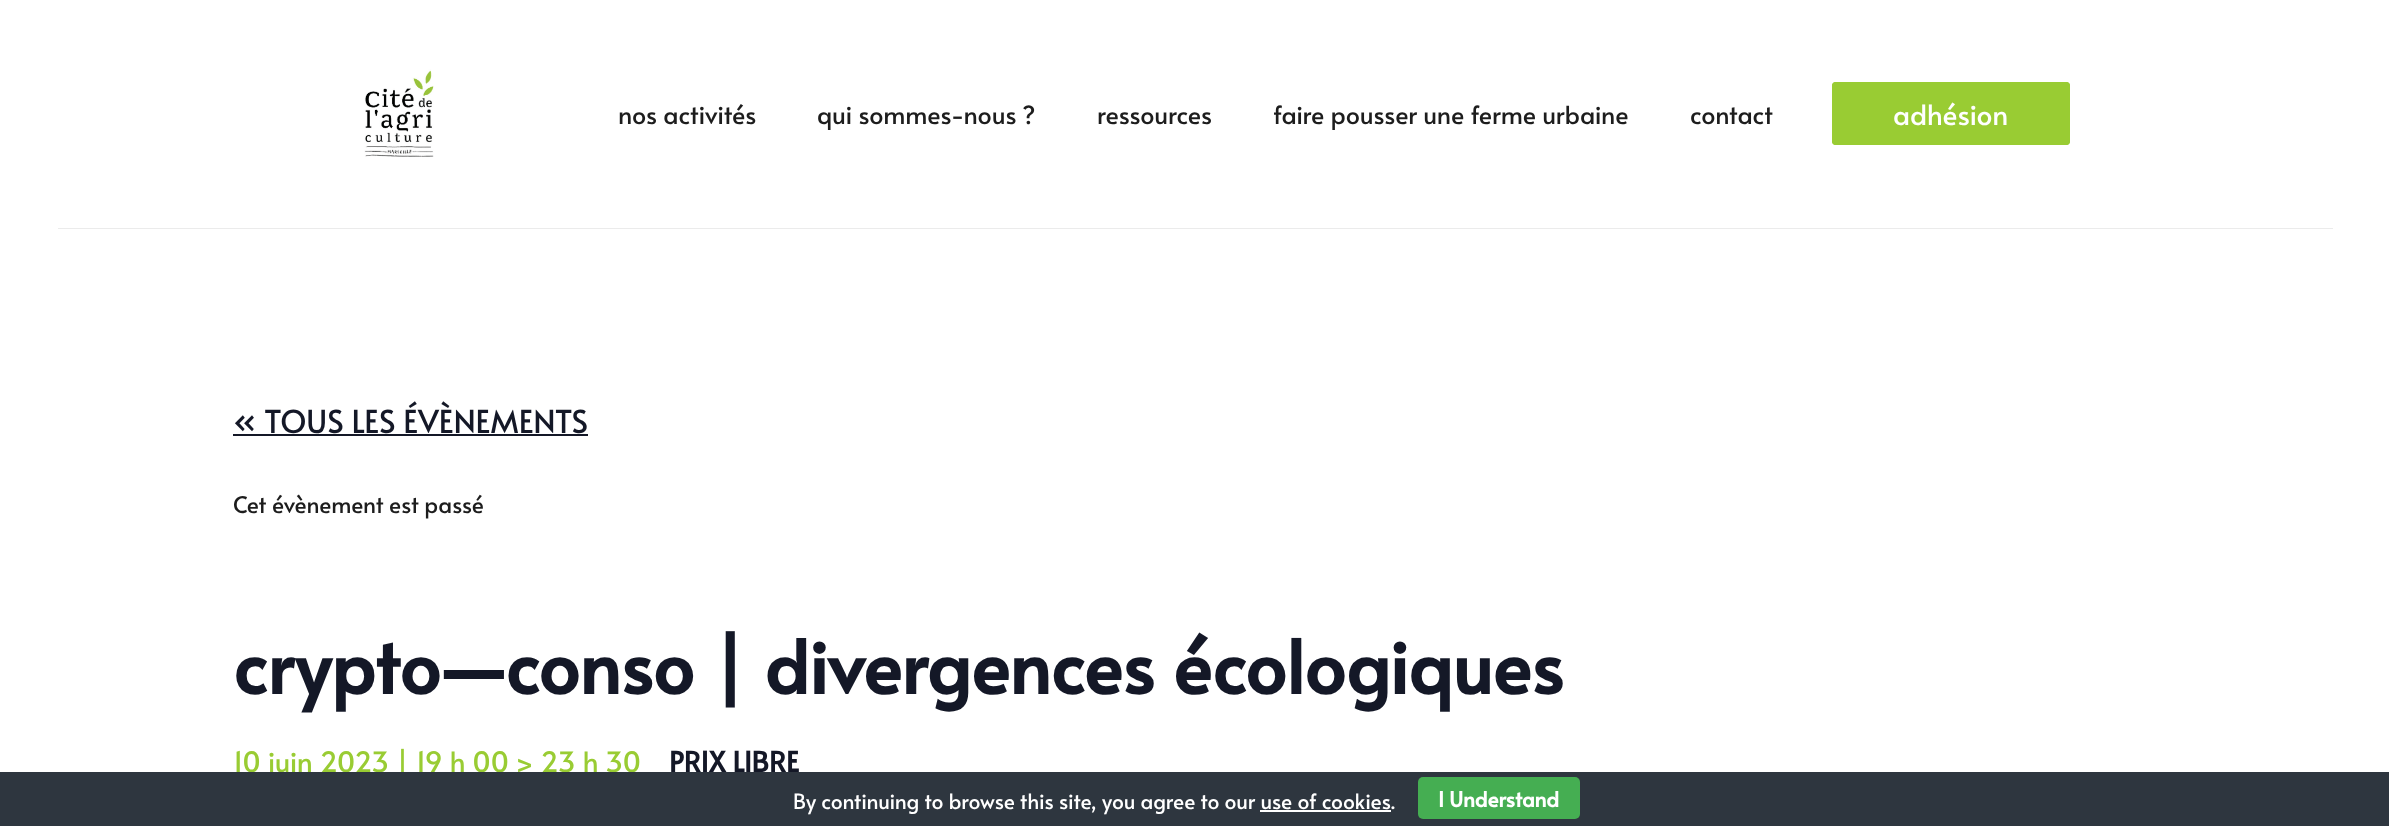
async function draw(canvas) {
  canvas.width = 2389;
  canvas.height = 826;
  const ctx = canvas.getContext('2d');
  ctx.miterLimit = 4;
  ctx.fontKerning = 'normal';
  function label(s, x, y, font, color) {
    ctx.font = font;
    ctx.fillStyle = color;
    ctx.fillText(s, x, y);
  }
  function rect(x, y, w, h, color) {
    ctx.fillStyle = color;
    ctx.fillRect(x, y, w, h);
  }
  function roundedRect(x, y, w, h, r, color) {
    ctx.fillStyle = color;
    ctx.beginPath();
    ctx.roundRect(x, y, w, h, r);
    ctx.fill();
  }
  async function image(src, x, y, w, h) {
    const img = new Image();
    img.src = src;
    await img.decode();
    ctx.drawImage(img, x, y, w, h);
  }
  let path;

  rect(0, 0, 2389, 826, '#fff');
  ctx.fillStyle = '#ebebeb';
  path = new Path2D('M58 228V229H2333V2V228Z');
  ctx.fill(path);
  await image('assets/img1.png', 364, 69, 70, 88);
  label('nos activités', 618, 124, '25px Alata', '#1d1d1d');
  label('qui sommes-nous ?', 817, 124, '25px Alata', '#1d1d1d');
  label('ressources', 1097, 124, '25px Alata', '#1d1d1d');
  label('faire pousser une ferme urbaine', 1273, 124, '25px Alata', '#1d1d1d');
  label('contact', 1690, 124, '25px Alata', '#1d1d1d');
  roundedRect(1832, 82, 238, 63, 4, '#9c3');
  ctx.beginPath();
  ctx.roundRect(1834, 84, 234, 59, 2);
  ctx.strokeStyle = '#9c3';
  ctx.lineWidth = 4;
  ctx.stroke();
  label('adhésion', 1893, 125, '28px Alata', '#fff');
  label('« TOUS LES ÉVÈNEMENTS', 233, 433, '31.5px Alata', '#141827');
  rect(233, 434, 355, 2, '#141827');
  label('Cet évènement est passé', 233, 513, '22.75px Alata', '#1d1d1d');
  label('crypto—conso | divergences écologiques', 233, 694, 'bold 73.5px Alata', '#141827');
  label('10 juin 2023 | 19 h 00 > 23 h 30', 233, 772, '28px Alata', '#9c3');
  label('PRIX LIBRE', 669, 772, 'bold 28px Alata', '#141827');
  rect(0, 772, 2389, 54, '#2e363f');
  label('By continuing to browse this site, you agree to our use of cookies.', 793, 809, '21px Alata', '#fff');
  roundedRect(1418, 777, 162, 42, 5, '#45ae52');
  label('I Understand', 1438, 807, 'bold 21px Alata', '#fff');
  rect(1260, 810, 131, 2, '#fff');
}

draw(document.querySelector('canvas'));
